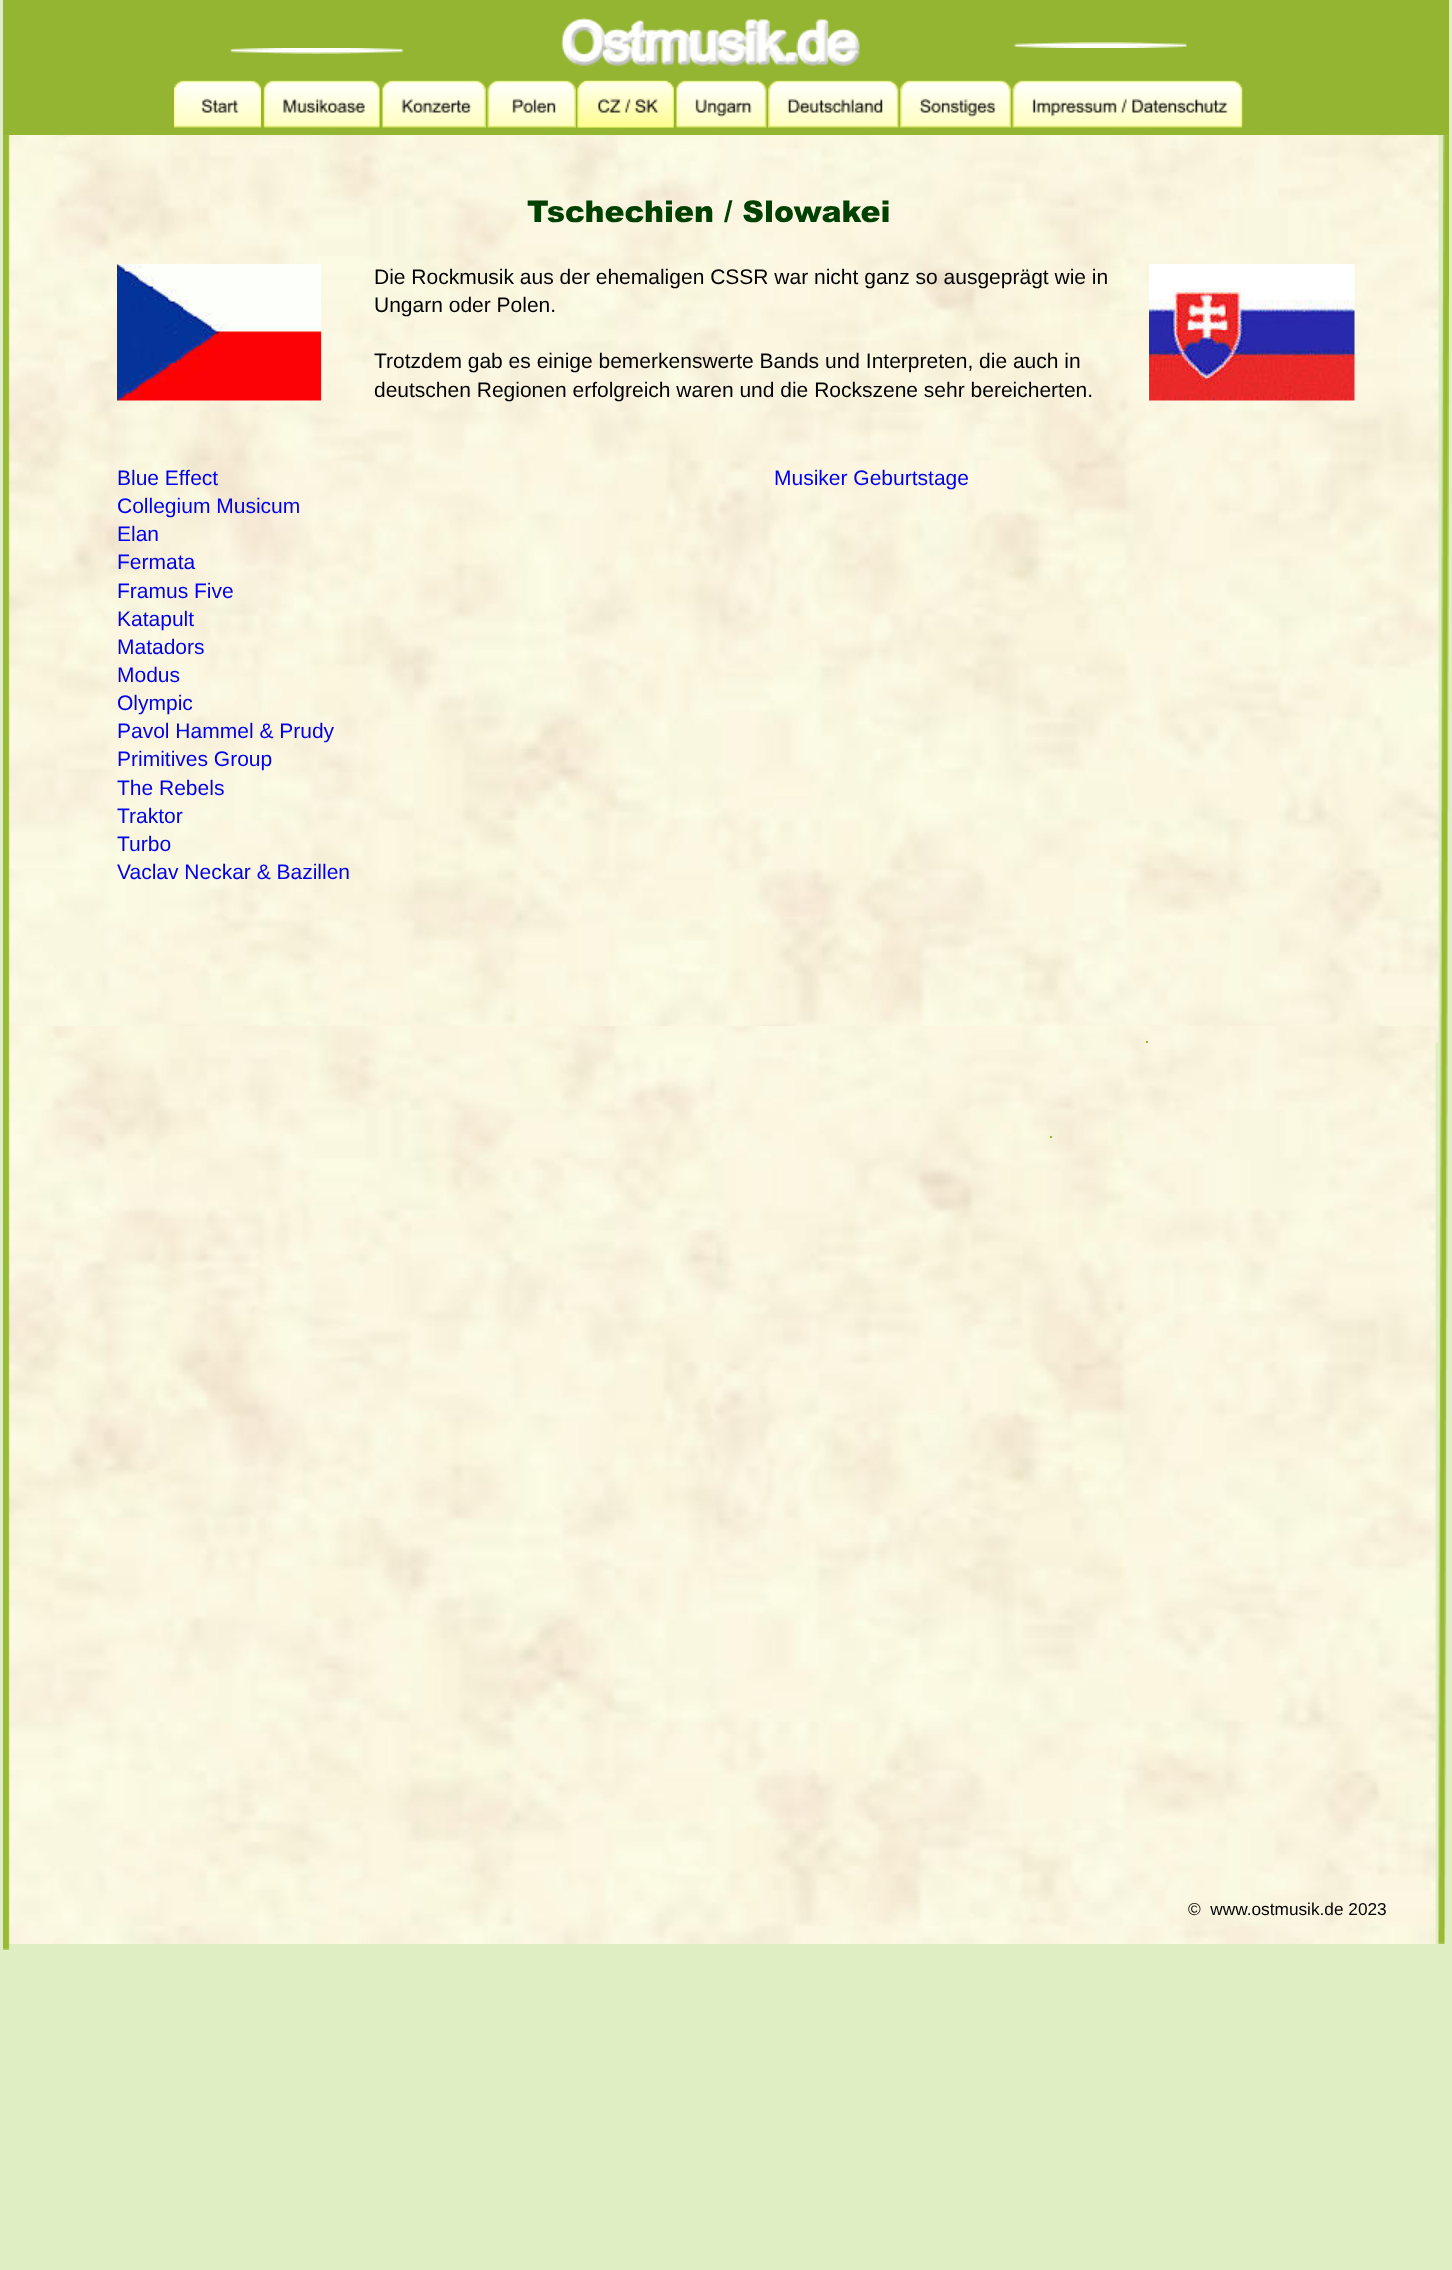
async function draw(canvas) {
  canvas.width = 1452;
  canvas.height = 2270;
  const ctx = canvas.getContext('2d');
  ctx.miterLimit = 4;
  ctx.fontKerning = 'normal';
  function label(s, x, y, font, color) {
    ctx.font = font;
    ctx.fillStyle = color;
    ctx.fillText(s, x, y);
  }
  function rect(x, y, w, h, color) {
    ctx.fillStyle = color;
    ctx.fillRect(x, y, w, h);
  }
  async function image(src, x, y, w, h) {
    const img = new Image();
    img.src = src;
    await img.decode();
    ctx.drawImage(img, x, y, w, h);
  }

  rect(0, 0, 1452, 2270, '#e0eec4');
  rect(3, 0, 1446, 135, '#93b531');
  await image('assets/img1.png', 561, 18, 299, 48);
  await image('assets/img2.png', 1013, 42, 174, 6);
  await image('assets/img3.png', 230, 48, 174, 6);
  await image('assets/img4.png', 174, 80, 87, 48);
  await image('assets/img5.png', 263, 80, 117, 48);
  await image('assets/img6.png', 382, 80, 104, 48);
  await image('assets/img7.png', 487, 80, 89, 48);
  await image('assets/img8.png', 577, 80, 97, 48);
  await image('assets/img9.png', 577, 80, 97, 48);
  await image('assets/img10.png', 676, 80, 91, 48);
  await image('assets/img11.png', 768, 80, 131, 48);
  await image('assets/img12.png', 900, 80, 111, 48);
  await image('assets/img13.png', 1012, 80, 231, 48);
  await image('assets/img15.png', 8, 135, 1431, 908);
  await image('assets/img20.png', 8, 1026, 1428, 918);
  await image('assets/img14.png', 3, 135, 7, 1815);
  await image('assets/img16.png', 1438, 135, 11, 1809);
  label('Tschechien / Slowakei', 527, 222, '900 30px Arial', '#004001');
  await image('assets/img17.png', 117, 264, 204, 137);
  label('Die Rockmusik aus der ehemaligen CSSR war nicht ganz so ausgeprägt wie in', 374, 284, '21px Liberation Sans', '#000');
  label('Ungarn oder Polen.', 374, 312, '21px Liberation Sans', '#000');
  label('Trotzdem gab es einige bemerkenswerte Bands und Interpreten, die auch in', 374, 368, '21px Liberation Sans', '#000');
  label('deutschen Regionen erfolgreich waren und die Rockszene sehr bereicherten.', 374, 397, '21px Liberation Sans', '#000');
  await image('assets/img18.png', 1149, 264, 206, 137);
  label('Blue Effect', 117, 485, '21px Liberation Sans', '#00e');
  label('Collegium Musicum', 117, 513, '21px Liberation Sans', '#00e');
  label('Elan', 117, 541, '21px Liberation Sans', '#00e');
  label('Fermata', 117, 569, '21px Liberation Sans', '#00e');
  label('Framus Five', 117, 598, '21px Liberation Sans', '#00e');
  label('Katapult', 117, 626, '21px Liberation Sans', '#00e');
  label('Matadors', 117, 654, '21px Liberation Sans', '#00e');
  label('Modus', 117, 682, '21px Liberation Sans', '#00e');
  label('Olympic', 117, 710, '21px Liberation Sans', '#00e');
  label('Pavol Hammel & Prudy', 117, 738, '21px Liberation Sans', '#00e');
  label('Primitives Group', 117, 766, '21px Liberation Sans', '#00e');
  label('The Rebels', 117, 795, '21px Liberation Sans', '#00e');
  label('Traktor', 117, 823, '21px Liberation Sans', '#00e');
  label('Turbo', 117, 851, '21px Liberation Sans', '#00e');
  label('Vaclav Neckar & Bazillen', 117, 879, '21px Liberation Sans', '#00e');
  label('Musiker Geburtstage', 774, 485, '21px Liberation Sans', '#00e');
  await image('assets/img19.png', 630, 661, 13, 20);
  rect(1146, 1041, 2, 2, '#93b531');
  rect(1050, 1136, 2, 2, '#93b531');
  label('©  www.ostmusik.de 2023', 1188, 1915, '17.25px Liberation Sans', '#000');
}

draw(document.querySelector('canvas'));
